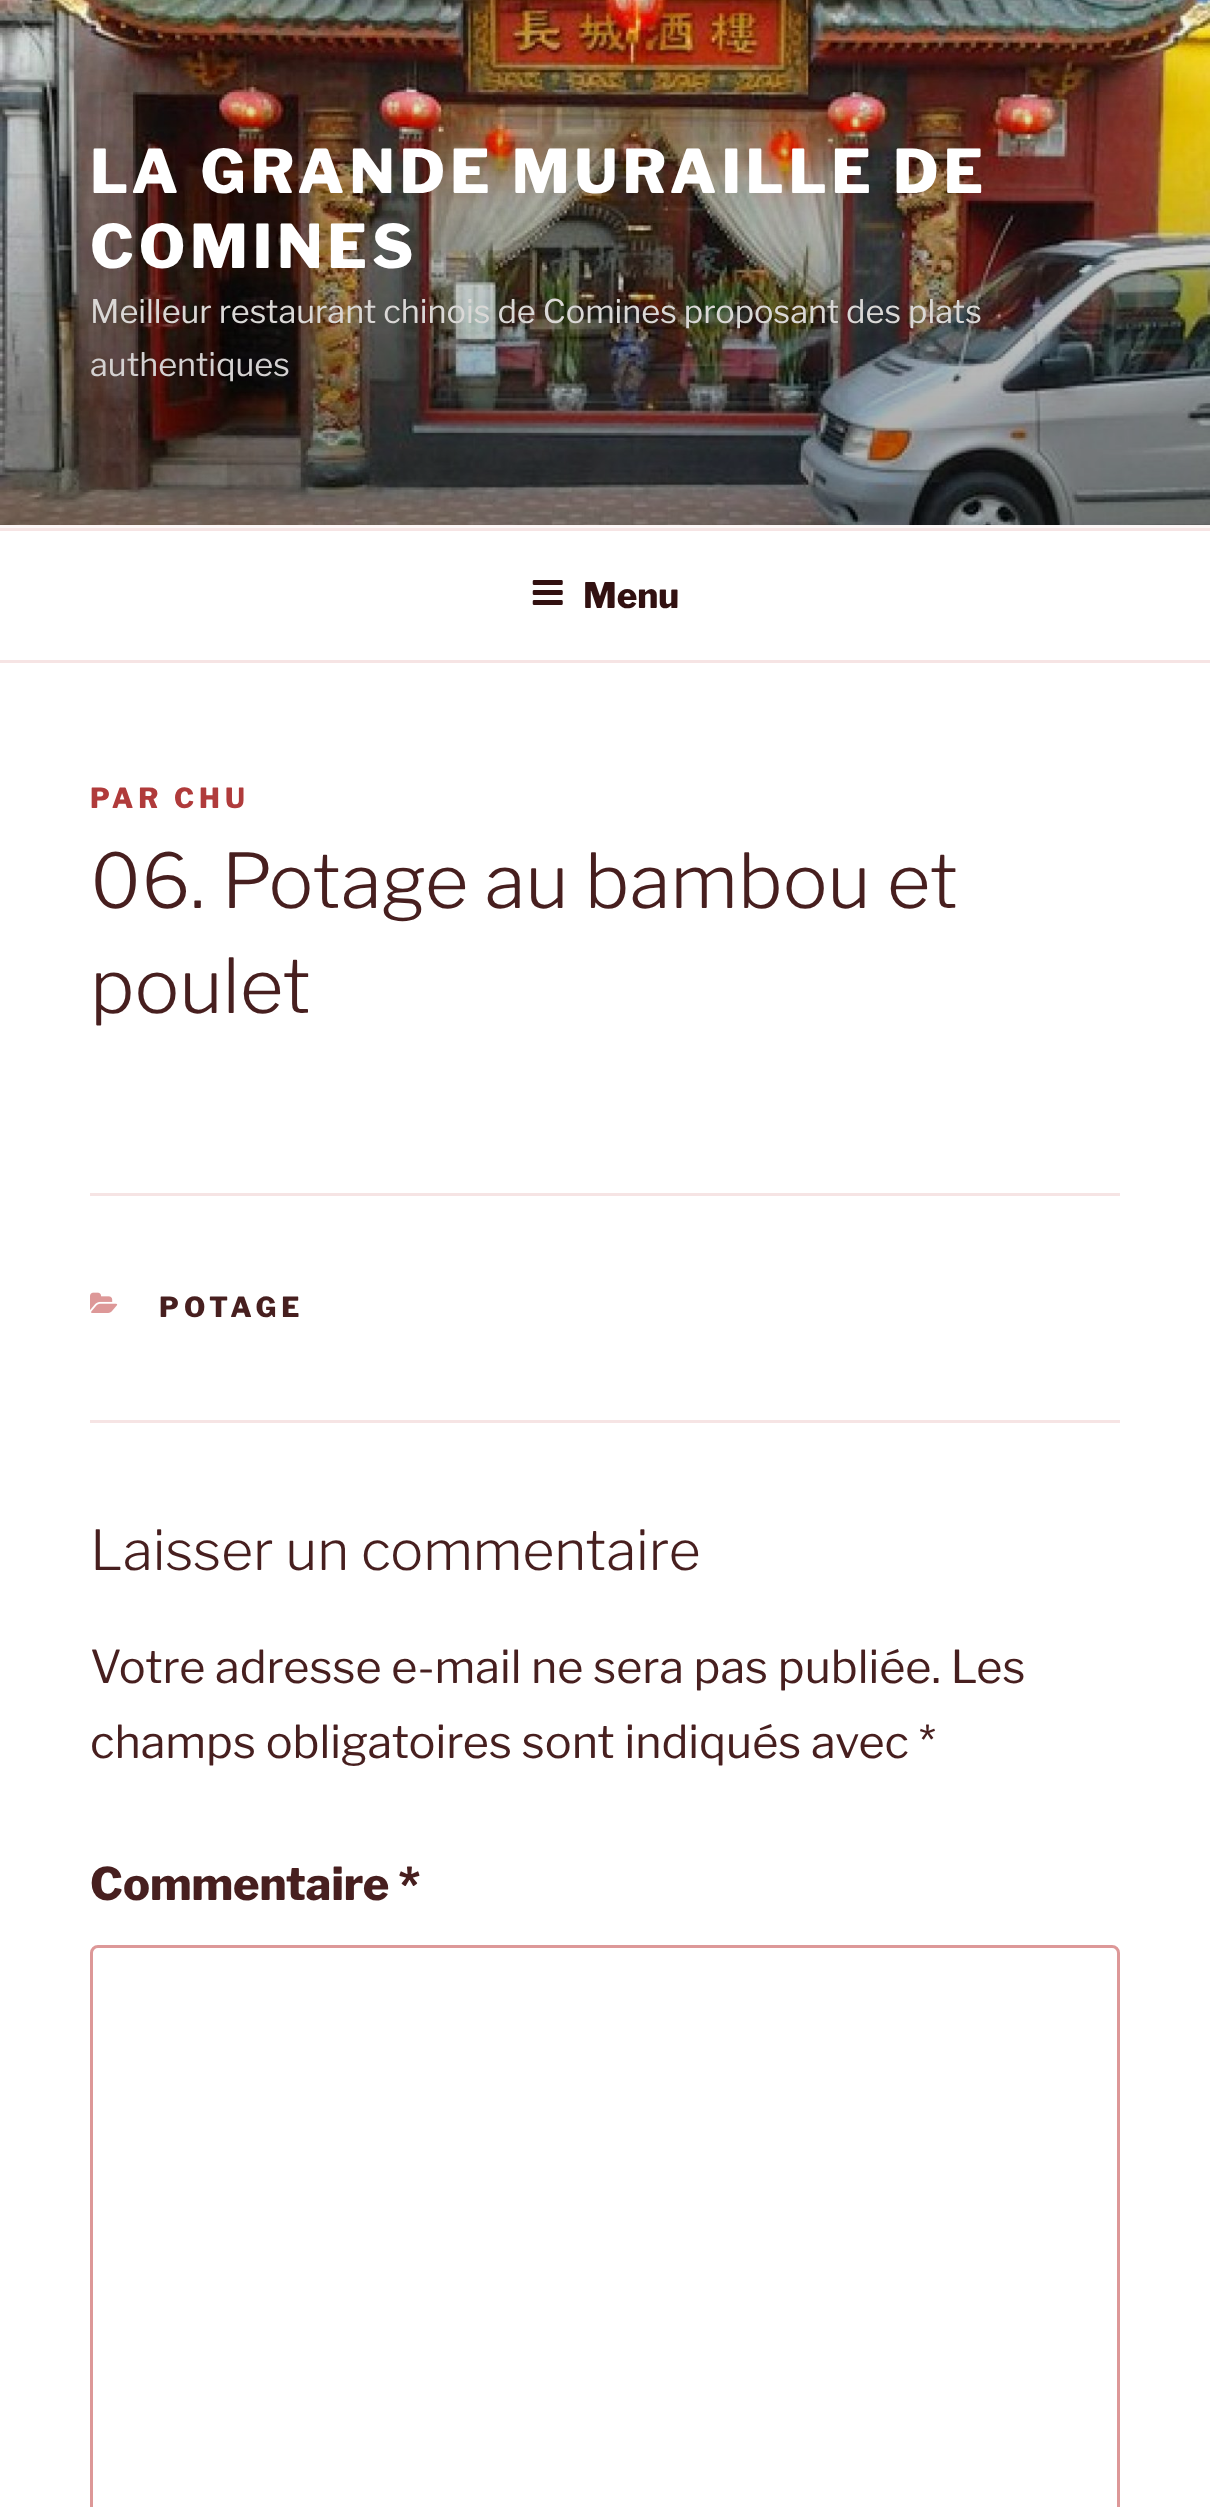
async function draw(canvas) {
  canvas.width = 1210;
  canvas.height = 2507;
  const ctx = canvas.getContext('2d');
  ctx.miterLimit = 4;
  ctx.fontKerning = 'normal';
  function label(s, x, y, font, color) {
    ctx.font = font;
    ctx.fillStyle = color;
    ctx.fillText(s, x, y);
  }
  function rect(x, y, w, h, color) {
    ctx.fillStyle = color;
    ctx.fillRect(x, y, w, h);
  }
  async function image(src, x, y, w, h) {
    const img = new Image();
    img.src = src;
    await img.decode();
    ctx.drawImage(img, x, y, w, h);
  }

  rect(0, 0, 1210, 2507, '#fff');
  rect(0, 525, 1210, 3, '#fcf7f7');
  await image('assets/img1.png', 0, 0, 1210, 525);
  ctx.letterSpacing = '4.8px';
  label('LA GRANDE MURAILLE DE', 90, 193, '800 60px Libre Franklin', '#fff');
  label('COMINES', 90, 268, '800 60px Libre Franklin', '#fff');
  ctx.letterSpacing = '0px';
  label('Meilleur restaurant chinois de Comines proposant des plats', 90, 323, '32.5px Libre Franklin', '#dad8d6');
  label('authentiques', 90, 376, '32.5px Libre Franklin', '#d4d1d1');
  rect(0, 528, 1210, 3, '#f6e4e4');
  rect(0, 660, 1210, 3, '#f6e4e4');
  await image('assets/img2.png', 532, 580, 31, 25);
  label('Menu', 583, 608, '800 35px Libre Franklin', '#321111');
  ctx.letterSpacing = '5px';
  label('PAR CHU', 90, 808, '800 27.5px Libre Franklin', '#b03b3b');
  ctx.letterSpacing = '0px';
  label('06. Potage au bambou et', 90, 908, '300 75px Libre Franklin', '#471f1f');
  label('poulet', 90, 1013, '300 75px Libre Franklin', '#471f1f');
  rect(90, 1193, 1030, 3, '#f6e4e4');
  rect(90, 1420, 1030, 3, '#f6e4e4');
  await image('assets/img3.png', 90, 1292, 28, 21);
  ctx.letterSpacing = '5px';
  label('POTAGE', 159, 1317, '800 27.5px Libre Franklin', '#471f1f');
  ctx.letterSpacing = '0px';
  label('Laisser un commentaire', 90, 1570, '300 55px Libre Franklin', '#471f1f');
  label('Votre adresse e-mail ne sera pas publiée. Les', 90, 1683, '45px Libre Franklin', '#471f1f');
  label('champs obligatoires sont indiqués avec *', 90, 1758, '45px Libre Franklin', '#471f1f');
  label('Commentaire *', 90, 1900, '800 45px Libre Franklin', '#471f1f');
  ctx.beginPath();
  ctx.roundRect(91.5, 1946.5, 1027, 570, 6.5);
  ctx.strokeStyle = '#dd9898';
  ctx.lineWidth = 3;
  ctx.stroke();
}

draw(document.querySelector('canvas'));
